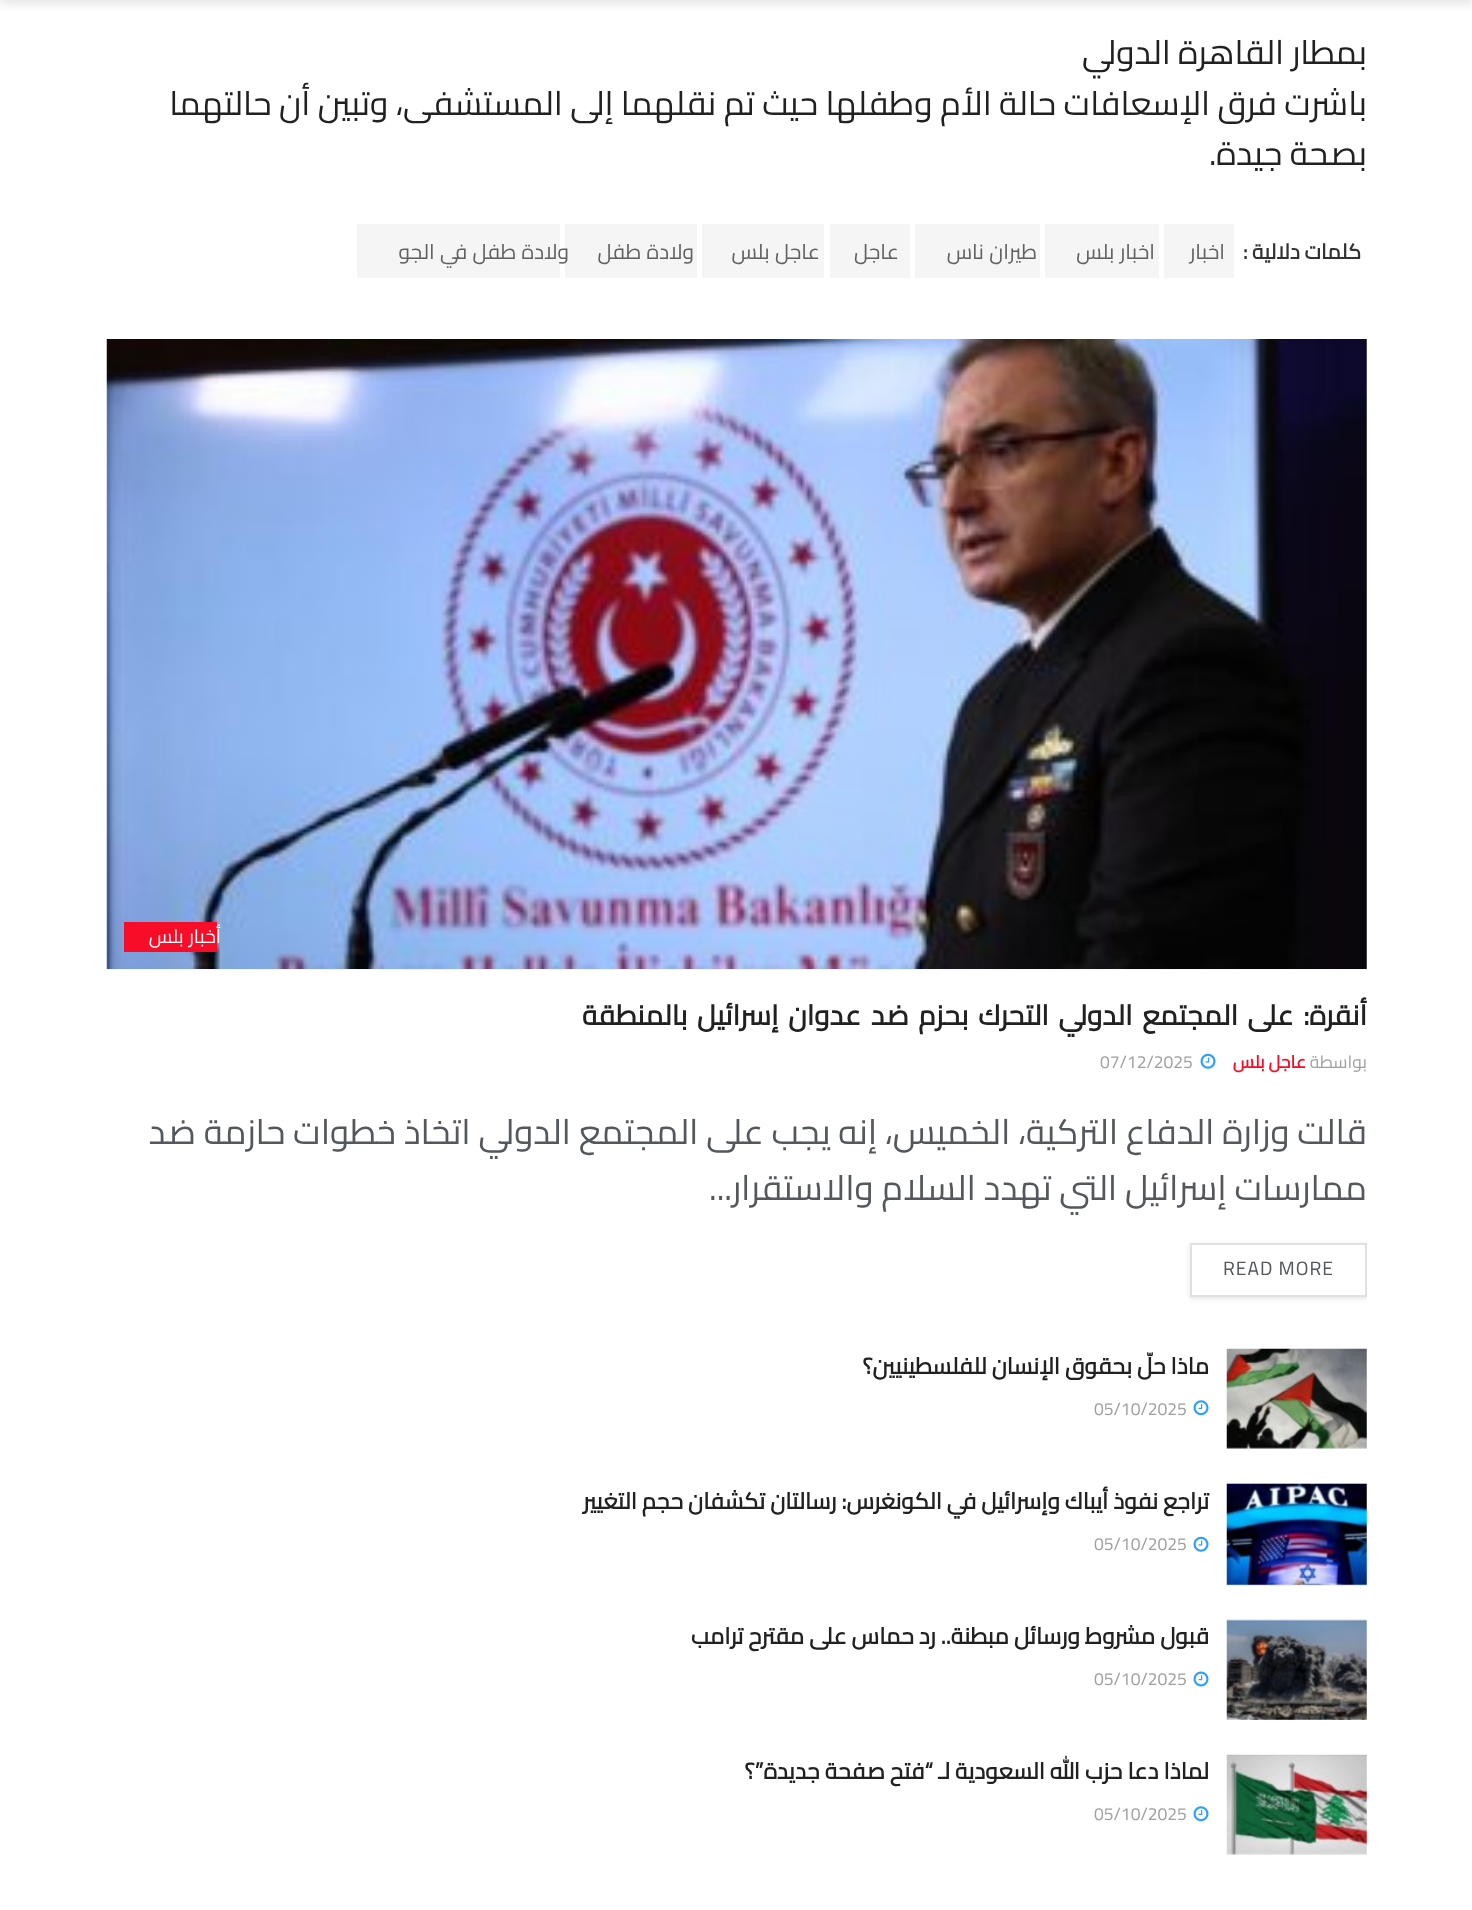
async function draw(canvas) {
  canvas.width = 1472;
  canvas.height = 1910;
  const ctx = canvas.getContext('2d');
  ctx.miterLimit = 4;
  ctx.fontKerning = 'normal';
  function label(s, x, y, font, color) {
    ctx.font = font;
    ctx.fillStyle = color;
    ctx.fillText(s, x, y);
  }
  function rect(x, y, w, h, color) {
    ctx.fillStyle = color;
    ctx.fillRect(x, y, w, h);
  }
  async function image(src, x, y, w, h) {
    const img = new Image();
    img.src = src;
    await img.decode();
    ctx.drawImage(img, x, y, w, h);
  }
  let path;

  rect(0, 0, 1472, 1910, '#fff');
  ctx.fillStyle = '#0000001a';
  ctx.filter = 'blur(5px)';
  ctx.beginPath();
  ctx.rect(0, -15, 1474, 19);
  ctx.fill();
  ctx.filter = 'none';
  ctx.direction = 'rtl';
  label('بمطار القاهرة الدولي', 1367, 64, '33.6px Cairo', '#212121');
  label('باشرت فرق الإسعافات حالة الأم وطفلها حيث تم نقلهما إلى المستشفى، وتبين أن حالتهما', 1367, 115, '33.6px Cairo', '#212121');
  label('بصحة جيدة.', 1367, 165, '33.6px Cairo', '#212121');
  label('كلمات دلالية :', 1361, 259, 'bold 21px Cairo', '#333');
  rect(1164, 224, 70, 54, '#f5f5f5');
  ctx.letterSpacing = '1.75px';
  label('اخبار', 1225, 259, '21px Cairo', '#616161');
  rect(1045, 224, 114, 54, '#f5f5f5');
  ctx.wordSpacing = '-1px';
  label('اخبار بلس', 1155, 259, '21px Cairo', '#616161');
  rect(915, 224, 125, 54, '#f5f5f5');
  label('طيران ناس', 1037, 259, '21px Cairo', '#616161');
  rect(830, 224, 80, 54, '#f5f5f5');
  ctx.wordSpacing = '0px';
  label('عاجل', 899, 259, '21px Cairo', '#616161');
  rect(702, 224, 122, 54, '#f5f5f5');
  ctx.wordSpacing = '-1px';
  label('عاجل بلس', 820, 259, '21px Cairo', '#616161');
  rect(565, 224, 132, 54, '#f5f5f5');
  label('ولادة طفل', 694, 259, '21px Cairo', '#616161');
  rect(357, 224, 203, 54, '#f5f5f5');
  label('ولادة طفل في الجو', 569, 259, '21px Cairo', '#616161');
  rect(107, 340, 1260, 630, '#f7f7f7');
  await image('assets/img1.png', 106, 339, 1261, 630);
  rect(124, 922, 93, 30, '#f70d28');
  label('أخبار بلس', 221, 943, '19.25px Cairo', '#fff');
  ctx.letterSpacing = '-0.55px';
  ctx.wordSpacing = '4px';
  label('أنقرة: على المجتمع الدولي التحرك بحزم ضد عدوان إسرائيل بالمنطقة', 1367, 1025, 'bold 28px Cairo', '#212121');
  ctx.letterSpacing = '0px';
  ctx.wordSpacing = '0px';
  label('بواسطة', 1367, 1068, '17.5px Cairo', '#a0a0a0');
  label('عاجل بلس', 1306, 1068, 'bold 17.5px Cairo', '#f70d28');
  await image('assets/img2.png', 1200, 1053, 16, 16);
  ctx.direction = 'ltr';
  label('07/12/2025', 1100, 1068, '17.5px Cairo', '#a0a0a0');
  ctx.direction = 'rtl';
  label('قالت وزارة الدفاع التركية، الخميس، إنه يجب على المجتمع الدولي اتخاذ خطوات حازمة ضد', 1367, 1144, '35px Cairo', '#53585c');
  label('ممارسات إسرائيل التي تهدد السلام والاستقرار...', 1367, 1200, '35px Cairo', '#53585c');
  ctx.save();
  ctx.beginPath();
  ctx.rect(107, 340, 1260, 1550);
  ctx.clip();
  path = new Path2D('M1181 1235H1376V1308H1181ZM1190 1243H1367V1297H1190Z');
  ctx.clip(path, 'evenodd');
  ctx.fillStyle = '#0000001a';
  ctx.filter = 'blur(2.5px)';
  ctx.beginPath();
  ctx.rect(1190, 1244, 177, 55);
  ctx.fill();
  ctx.filter = 'none';
  ctx.restore();
  ctx.strokeStyle = '#e0e0e0';
  ctx.lineWidth = 2;
  ctx.strokeRect(1191, 1244, 175, 52);
  ctx.letterSpacing = '1px';
  ctx.direction = 'ltr';
  label('READ MORE', 1223, 1275, '19.25px Cairo', '#53585c');
  rect(1227, 1349, 140, 100, '#f7f7f7');
  await image('assets/img3.png', 1226, 1348, 141, 101);
  ctx.letterSpacing = '0px';
  ctx.direction = 'rtl';
  label('ماذا حلّ بحقوق الإنسان للفلسطينيين؟', 1209, 1374, 'bold 22.75px Cairo', '#212121');
  await image('assets/img4.png', 1193, 1400, 16, 16);
  ctx.direction = 'ltr';
  label('05/10/2025', 1094, 1415, '17.5px Cairo', '#a0a0a0');
  rect(1227, 1484, 140, 102, '#f7f7f7');
  await image('assets/img5.png', 1226, 1483, 141, 103);
  ctx.direction = 'rtl';
  label('تراجع نفوذ أيباك وإسرائيل في الكونغرس: رسالتان تكشفان حجم التغيير', 1209, 1509, 'bold 22.75px Cairo', '#212121');
  await image('assets/img2.png', 1193, 1536, 16, 16);
  ctx.direction = 'ltr';
  label('05/10/2025', 1094, 1550, '17.5px Cairo', '#a0a0a0');
  rect(1227, 1621, 140, 99, '#f7f7f7');
  rect(1227, 1620, 139, 1, '#fafafa');
  await image('assets/img6.png', 1226, 1619, 141, 101);
  ctx.direction = 'rtl';
  label('قبول مشروط ورسائل مبطنة.. رد حماس على مقترح ترامب', 1209, 1644, 'bold 22.75px Cairo', '#212121');
  await image('assets/img7.png', 1193, 1671, 16, 16);
  ctx.direction = 'ltr';
  label('05/10/2025', 1094, 1685, '17.5px Cairo', '#a0a0a0');
  rect(1227, 1755, 140, 100, '#f7f7f7');
  await image('assets/img8.png', 1226, 1754, 141, 101);
  ctx.direction = 'rtl';
  label('لماذا دعا حزب الله السعودية لـ “فتح صفحة جديدة”؟', 1209, 1779, 'bold 22.75px Cairo', '#212121');
  await image('assets/img9.png', 1193, 1806, 16, 16);
  ctx.direction = 'ltr';
  label('05/10/2025', 1094, 1820, '17.5px Cairo', '#a0a0a0');
}

draw(document.querySelector('canvas'));
